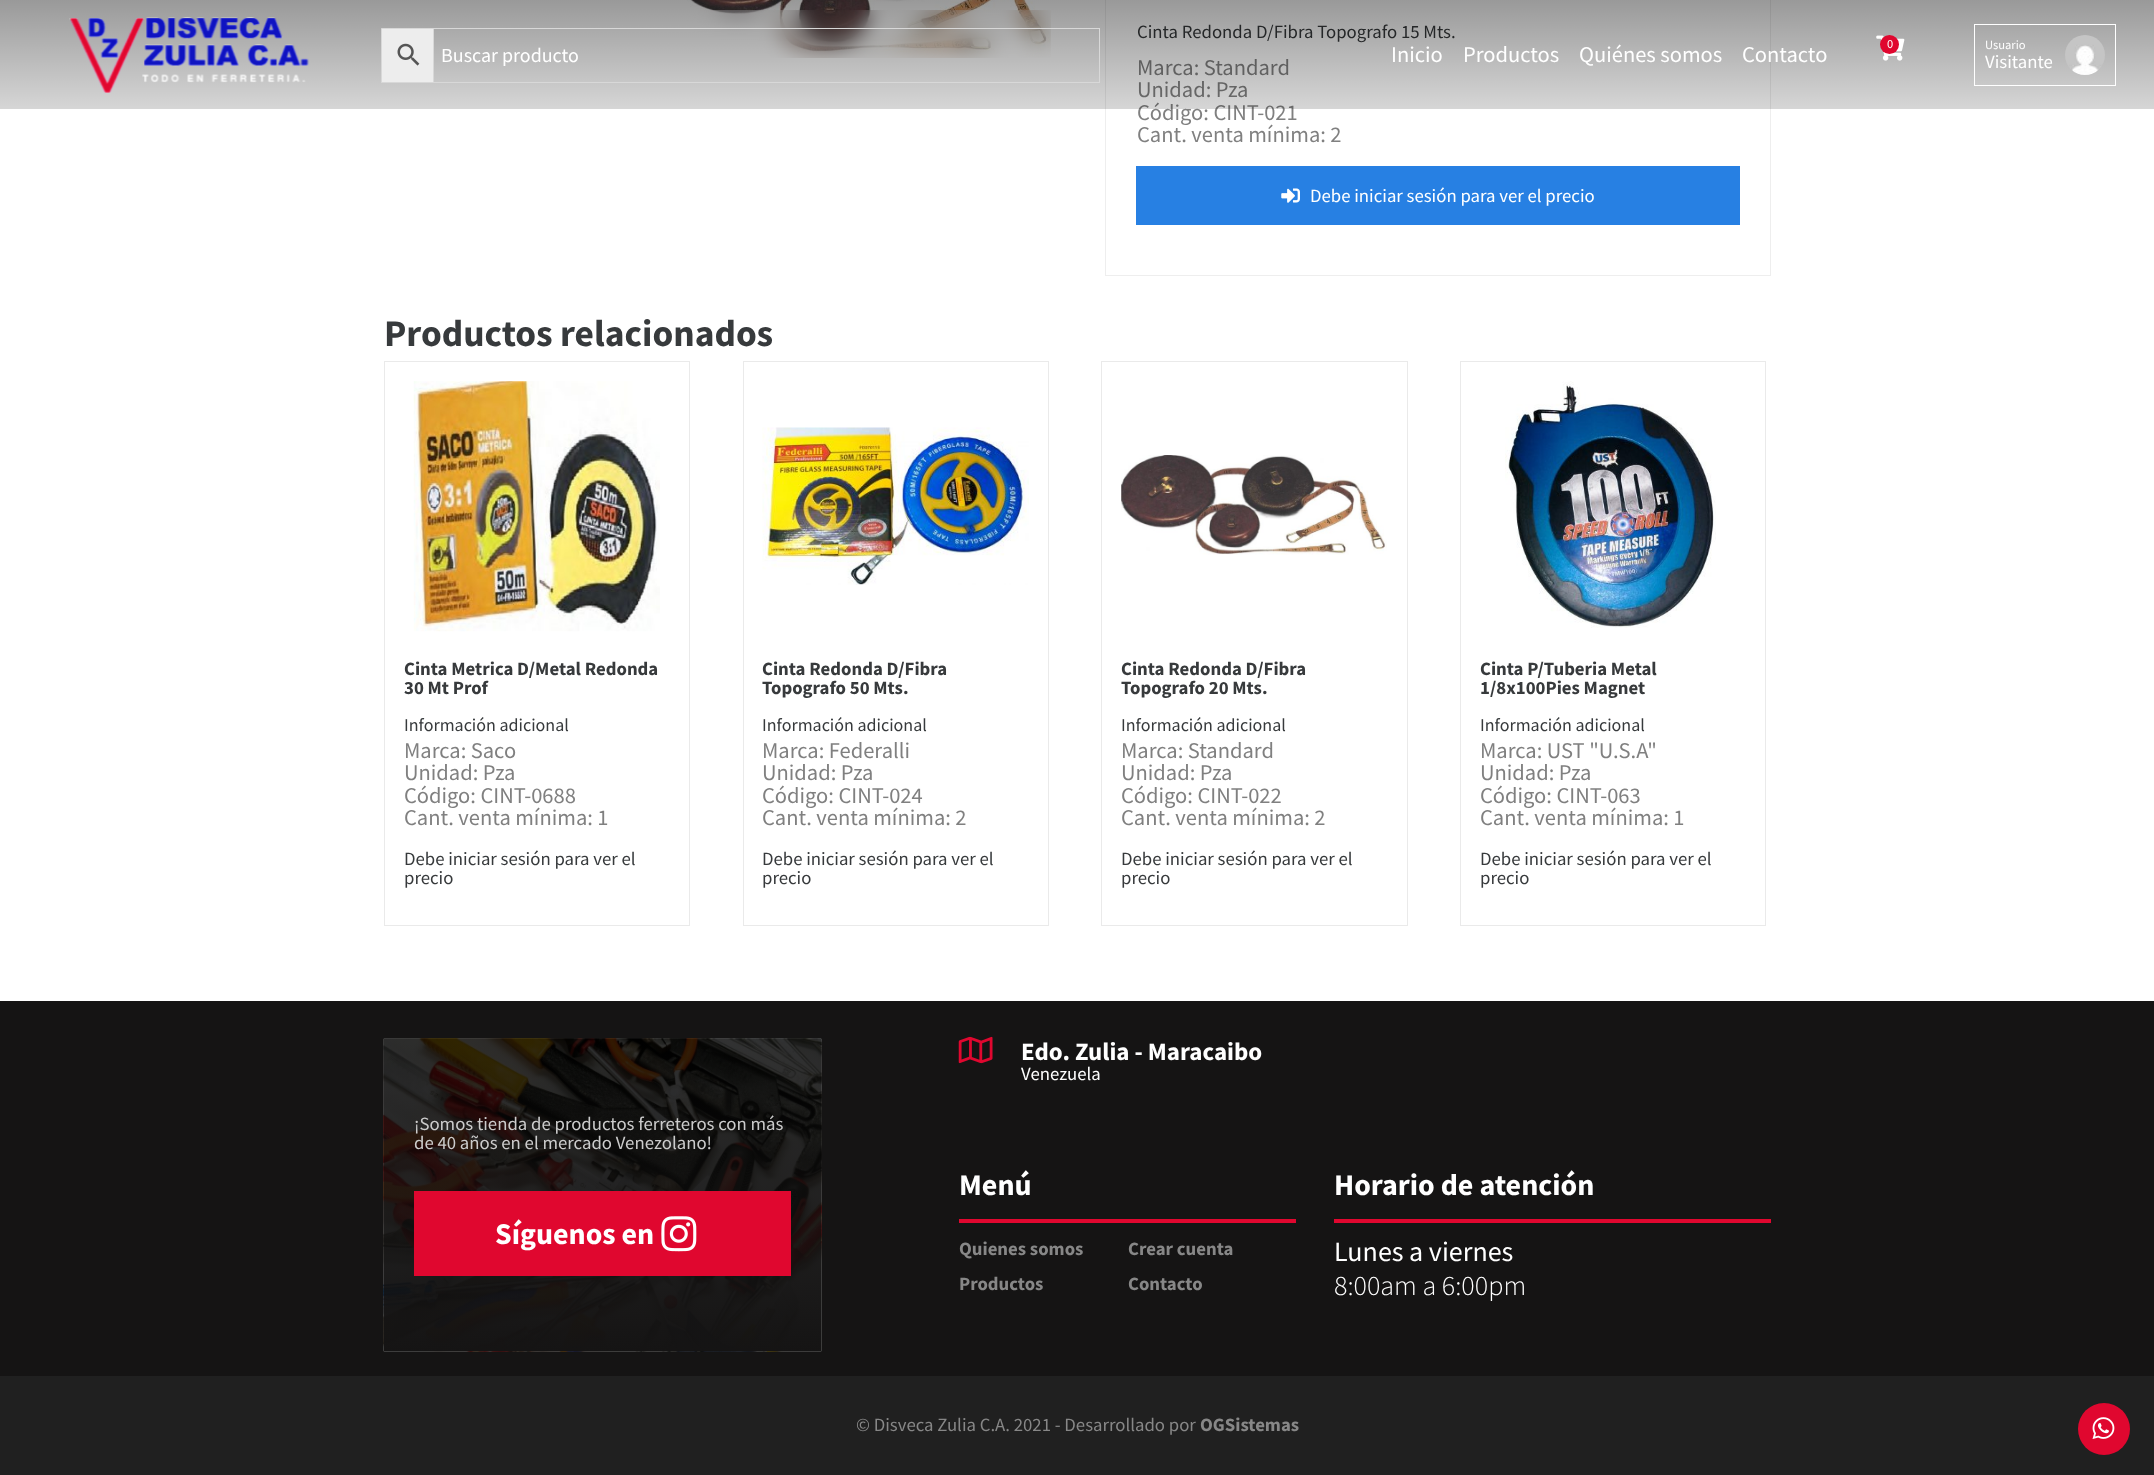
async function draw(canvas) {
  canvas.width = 2154;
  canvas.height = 1475;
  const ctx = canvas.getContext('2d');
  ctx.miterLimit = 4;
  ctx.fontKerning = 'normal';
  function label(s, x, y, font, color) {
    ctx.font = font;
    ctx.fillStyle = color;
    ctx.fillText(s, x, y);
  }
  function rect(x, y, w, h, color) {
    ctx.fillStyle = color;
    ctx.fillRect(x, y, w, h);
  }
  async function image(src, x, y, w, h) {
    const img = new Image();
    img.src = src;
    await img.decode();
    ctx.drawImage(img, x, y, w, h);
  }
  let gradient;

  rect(0, 0, 2154, 1475, '#fff');
  await image('assets/img1.png', 687, 0, 364, 58);
  ctx.strokeStyle = '#eee';
  ctx.strokeRect(1105.5, -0.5, 665, 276);
  label('Cinta Redonda D/Fibra Topografo 15 Mts.', 1137, 38, '18.75px Source Sans Pro', '#373a3c');
  label('Marca: Standard', 1137, 75, '22.5px Source Sans Pro', '#808080');
  label('Unidad: Pza', 1137, 97, '22.5px Source Sans Pro', '#808080');
  label('Código: CINT-021', 1137, 120, '22.5px Source Sans Pro', '#808080');
  label('Cant. venta mínima: 2', 1137, 142, '22.5px Source Sans Pro', '#808080');
  rect(1136, 166, 604, 59, '#2780e3');
  await image('assets/img2.png', 1281, 188, 19, 15);
  label('Debe iniciar sesión para ver el precio', 1310, 202, '18.75px Source Sans Pro', '#fff');
  label('Productos relacionados', 384, 346, 'bold 37.5px Source Sans Pro', '#373a3c');
  ctx.strokeStyle = '#eaeaea';
  ctx.strokeRect(384.5, 361.5, 305, 564);
  await image('assets/img3.png', 413, 381, 247, 251);
  label('Cinta Metrica D/Metal Redonda', 404, 675, 'bold 18.75px Source Sans Pro', '#373a3c');
  label('30 Mt Prof', 404, 694, 'bold 18.75px Source Sans Pro', '#373a3c');
  label('Información adicional', 404, 731, '18px Source Sans Pro', '#373a3c');
  label('Marca: Saco', 404, 758, '22.5px Source Sans Pro', '#808080');
  label('Unidad: Pza', 404, 780, '22.5px Source Sans Pro', '#808080');
  label('Código: CINT-0688', 404, 803, '22.5px Source Sans Pro', '#808080');
  label('Cant. venta mínima: 1', 404, 825, '22.5px Source Sans Pro', '#808080');
  label('Debe iniciar sesión para ver el', 404, 865, '18.75px Source Sans Pro', '#373a3c');
  label('precio', 404, 884, '18.75px Source Sans Pro', '#373a3c');
  ctx.strokeRect(743.5, 361.5, 305, 564);
  await image('assets/img4.png', 762, 427, 267, 158);
  label('Cinta Redonda D/Fibra', 762, 675, 'bold 18.75px Source Sans Pro', '#373a3c');
  label('Topografo 50 Mts.', 762, 694, 'bold 18.75px Source Sans Pro', '#373a3c');
  label('Información adicional', 762, 731, '18px Source Sans Pro', '#373a3c');
  label('Marca: Federalli', 762, 758, '22.5px Source Sans Pro', '#808080');
  label('Unidad: Pza', 762, 780, '22.5px Source Sans Pro', '#808080');
  label('Código: CINT-024', 762, 803, '22.5px Source Sans Pro', '#808080');
  label('Cant. venta mínima: 2', 762, 825, '22.5px Source Sans Pro', '#808080');
  label('Debe iniciar sesión para ver el', 762, 865, '18.75px Source Sans Pro', '#373a3c');
  label('precio', 762, 884, '18.75px Source Sans Pro', '#373a3c');
  ctx.strokeRect(1101.5, 361.5, 306, 564);
  await image('assets/img5.png', 1121, 455, 266, 100);
  label('Cinta Redonda D/Fibra', 1121, 675, 'bold 18.75px Source Sans Pro', '#373a3c');
  label('Topografo 20 Mts.', 1121, 694, 'bold 18.75px Source Sans Pro', '#373a3c');
  label('Información adicional', 1121, 731, '18px Source Sans Pro', '#373a3c');
  label('Marca: Standard', 1121, 758, '22.5px Source Sans Pro', '#808080');
  label('Unidad: Pza', 1121, 780, '22.5px Source Sans Pro', '#808080');
  label('Código: CINT-022', 1121, 803, '22.5px Source Sans Pro', '#808080');
  label('Cant. venta mínima: 2', 1121, 825, '22.5px Source Sans Pro', '#808080');
  label('Debe iniciar sesión para ver el', 1121, 865, '18.75px Source Sans Pro', '#373a3c');
  label('precio', 1121, 884, '18.75px Source Sans Pro', '#373a3c');
  ctx.strokeRect(1460.5, 361.5, 305, 564);
  await image('assets/img6.png', 1505, 381, 211, 247);
  label('Cinta P/Tuberia Metal', 1480, 675, 'bold 18.75px Source Sans Pro', '#373a3c');
  label('1/8x100Pies Magnet', 1480, 694, 'bold 18.75px Source Sans Pro', '#373a3c');
  label('Información adicional', 1480, 731, '18px Source Sans Pro', '#373a3c');
  label('Marca: UST "U.S.A"', 1480, 758, '22.5px Source Sans Pro', '#808080');
  label('Unidad: Pza', 1480, 780, '22.5px Source Sans Pro', '#808080');
  label('Código: CINT-063', 1480, 803, '22.5px Source Sans Pro', '#808080');
  label('Cant. venta mínima: 1', 1480, 825, '22.5px Source Sans Pro', '#808080');
  label('Debe iniciar sesión para ver el', 1480, 865, '18.75px Source Sans Pro', '#373a3c');
  label('precio', 1480, 884, '18.75px Source Sans Pro', '#373a3c');
  gradient = ctx.createLinearGradient(1078, 0, 1078, 109);
  gradient.addColorStop(0, '#00000066');
  gradient.addColorStop(1, '#00000029');
  ctx.fillStyle = gradient;
  ctx.fillRect(0, 0, 2154, 109);
  await image('assets/img7.png', 69, 17, 240, 76);
  ctx.fillStyle = '#ededed';
  ctx.beginPath();
  ctx.rect(381.5, 28.5, 52, 54);
  ctx.fill();
  ctx.strokeStyle = '#d8d8d8';
  ctx.stroke();
  await image('assets/img8.png', 397, 43, 23, 23);
  ctx.strokeRect(433.5, 28.5, 666, 54);
  label('Buscar producto', 441, 62, '20px Source Sans Pro', '#fff');
  label('Inicio', 1391, 62, '22.5px Source Sans Pro', '#fff');
  label('Productos', 1463, 62, '22.5px Source Sans Pro', '#fff');
  label('Quiénes somos', 1579, 62, '22.5px Source Sans Pro', '#fff');
  label('Contacto', 1742, 62, '22.5px Source Sans Pro', '#fff');
  await image('assets/img9.png', 1876, 35, 29, 26);
  ctx.fillStyle = '#e0072f';
  ctx.beginPath();
  ctx.arc(1889.5, 44.5, 9.5, 0, 2 * Math.PI);
  ctx.fill();
  label('0', 1887, 48, '12.5px Source Sans Pro', '#fff');
  ctx.strokeStyle = '#fff';
  ctx.strokeRect(1974.5, 24.5, 141, 61);
  label('Usuario', 1985, 49, '12.5px Source Sans Pro', '#fff');
  label('Visitante', 1985, 68, '18.75px Source Sans Pro', '#fff');
  await image('assets/img10.png', 2065, 35, 40, 40);
  rect(0, 1001, 2154, 375, '#151414');
  await image('assets/img11.png', 383, 1038, 439, 314);
  label('¡Somos tienda de productos ferreteros con más', 414, 1130, '18.75px Source Sans Pro', '#ccc');
  label('de 40 años en el mercado Venezolano!', 414, 1149, '18.75px Source Sans Pro', '#ccc');
  rect(414, 1191, 377, 85, '#e0072f');
  label('Síguenos en', 495, 1244, 'bold 30px Source Sans Pro', '#fff');
  await image('assets/img12.png', 661, 1216, 36, 36);
  await image('assets/img13.png', 958, 1036, 35, 28);
  label('Edo. Zulia - Maracaibo', 1021, 1060, 'bold 25px Source Sans Pro', '#fff');
  label('Venezuela', 1021, 1080, '18.75px Source Sans Pro', '#fff');
  label('Menú', 959, 1195, 'bold 30px Source Sans Pro', '#fff');
  rect(959, 1219, 337, 4, '#e0072f');
  label('Quienes somos', 959, 1255, 'bold 18.75px Source Sans Pro', '#878787');
  label('Crear cuenta', 1128, 1255, 'bold 18.75px Source Sans Pro', '#878787');
  label('Productos', 959, 1290, 'bold 18.75px Source Sans Pro', '#878787');
  label('Contacto', 1128, 1290, 'bold 18.75px Source Sans Pro', '#878787');
  label('Horario de atención', 1334, 1195, 'bold 30px Source Sans Pro', '#fff');
  rect(1334, 1219, 437, 4, '#e0072f');
  label('Lunes a viernes', 1334, 1261, '28px Source Sans Pro', '#fff');
  label('8:00am a 6:00pm', 1334, 1295, '300 28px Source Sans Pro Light', '#fff');
  rect(0, 1376, 2154, 99, '#202020');
  label('© Disveca Zulia C.A. 2021 - Desarrollado por', 856, 1431, '18.75px Source Sans Pro', '#878787');
  label('OGSistemas', 1200, 1431, 'bold 18.75px Source Sans Pro', '#878787');
  ctx.fillStyle = '#e0072f';
  ctx.beginPath();
  ctx.arc(2104, 1429, 26, 0, 2 * Math.PI);
  ctx.fill();
  await image('assets/img14.png', 2092, 1417, 23, 22);
}

draw(document.querySelector('canvas'));
